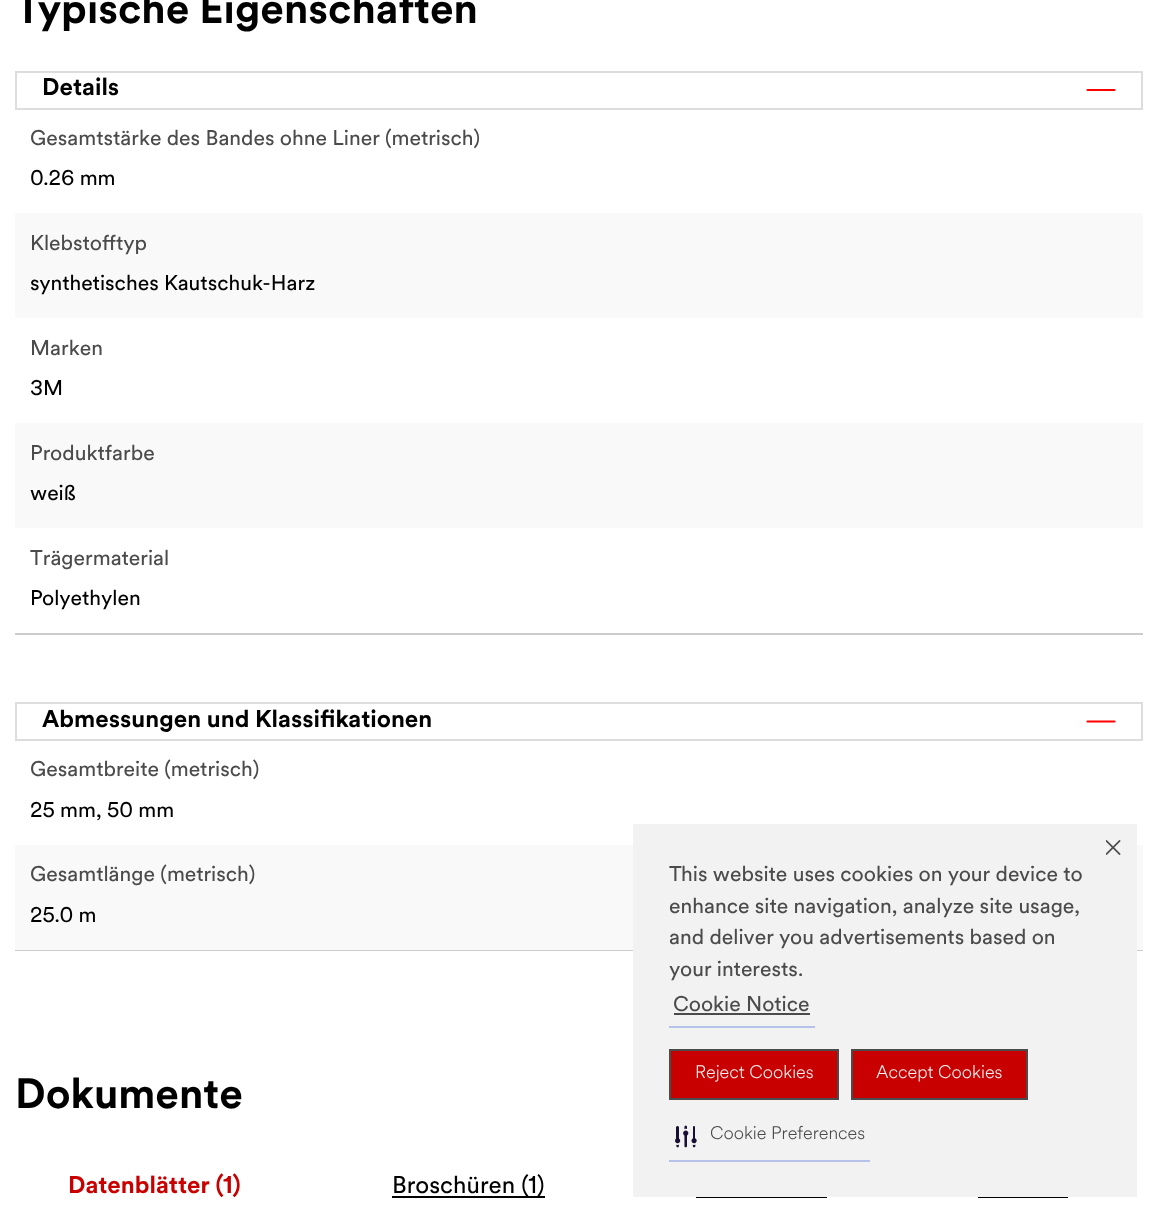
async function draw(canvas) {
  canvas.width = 1157;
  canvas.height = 1217;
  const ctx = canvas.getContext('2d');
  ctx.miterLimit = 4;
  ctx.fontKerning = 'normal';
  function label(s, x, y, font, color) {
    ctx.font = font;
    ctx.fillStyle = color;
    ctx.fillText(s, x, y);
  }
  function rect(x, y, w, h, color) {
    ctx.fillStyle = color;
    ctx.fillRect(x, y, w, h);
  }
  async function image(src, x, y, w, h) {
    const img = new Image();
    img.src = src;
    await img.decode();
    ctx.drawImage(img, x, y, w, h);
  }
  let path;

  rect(0, 0, 1157, 1217, '#fff');
  label('Typische Eigenschaften', 15, 23, 'bold 42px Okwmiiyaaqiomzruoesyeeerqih', '#000');
  ctx.strokeStyle = '#ddd';
  ctx.lineWidth = 2;
  ctx.strokeRect(16, 72, 1126, 37);
  label('Details', 42, 95, 'bold 24px Okwmiiyaaqiomzruoesyeeerqih', '#000');
  path = new Path2D('M1114.5 90H1087.5');
  ctx.strokeStyle = '#f00';
  ctx.lineWidth = 2.2;
  ctx.lineCap = 'round';
  ctx.lineJoin = 'round';
  ctx.stroke(path);
  label('Gesamtstärke des Bandes ohne Liner (metrisch)', 30, 145, '21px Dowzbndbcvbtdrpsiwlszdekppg', '#4b4b4b');
  label('0.26 mm', 30, 185, '21px Dowzbndbcvbtdrpsiwlszdekppg', '#000');
  rect(15, 213, 1128, 105, '#f9f9f9');
  label('Klebstofftyp', 30, 250, '21px Dowzbndbcvbtdrpsiwlszdekppg', '#4b4b4b');
  label('synthetisches Kautschuk-Harz', 30, 290, '21px Dowzbndbcvbtdrpsiwlszdekppg', '#000');
  label('Marken', 30, 355, '21px Dowzbndbcvbtdrpsiwlszdekppg', '#4b4b4b');
  label('3M', 30, 395, '21px Dowzbndbcvbtdrpsiwlszdekppg', '#000');
  rect(15, 423, 1128, 105, '#f9f9f9');
  label('Produktfarbe', 30, 460, '21px Dowzbndbcvbtdrpsiwlszdekppg', '#4b4b4b');
  label('weiß', 30, 500, '21px Dowzbndbcvbtdrpsiwlszdekppg', '#000');
  rect(15, 633, 1128, 2, '#ccc');
  label('Trägermaterial', 30, 565, '21px Dowzbndbcvbtdrpsiwlszdekppg', '#4b4b4b');
  label('Polyethylen', 30, 605, '21px Dowzbndbcvbtdrpsiwlszdekppg', '#000');
  ctx.strokeStyle = '#ddd';
  ctx.lineWidth = 2;
  ctx.lineJoin = 'miter';
  ctx.strokeRect(16, 703, 1126, 37);
  label('Abmessungen und Klassifikationen', 42, 727, 'bold 24px Okwmiiyaaqiomzruoesyeeerqih', '#000');
  path = new Path2D('M1114.5 721.5H1087.5');
  ctx.strokeStyle = '#f00';
  ctx.lineWidth = 2.2;
  ctx.lineJoin = 'round';
  ctx.stroke(path);
  label('Gesamtbreite (metrisch)', 30, 776, '21px Dowzbndbcvbtdrpsiwlszdekppg', '#4b4b4b');
  label('25 mm, 50 mm', 30, 817, '21px Dowzbndbcvbtdrpsiwlszdekppg', '#000');
  rect(15, 950, 1128, 1, '#ccc');
  rect(15, 845, 1128, 105, '#f9f9f9');
  label('Gesamtlänge (metrisch)', 30, 881, '21px Dowzbndbcvbtdrpsiwlszdekppg', '#4b4b4b');
  label('25.0 m', 30, 922, '21px Dowzbndbcvbtdrpsiwlszdekppg', '#000');
  label('Dokumente', 15, 1108, 'bold 42px Okwmiiyaaqiomzruoesyeeerqih', '#000');
  label('Datenblätter (1)', 68, 1193, 'bold 24px Okwmiiyaaqiomzruoesyeeerqih', '#c80000');
  rect(392, 1196, 153, 2, '#000');
  label('Broschüren (1)', 392, 1193, '24px Dowzbndbcvbtdrpsiwlszdekppg', '#000');
  rect(696, 1197, 131, 1, '#000');
  rect(978, 1197, 90, 1, '#000');
  rect(633, 824, 504, 373, '#f2f2f2');
  label('This website uses cookies on your device to', 669, 881, '21px Dowzbndbcvbtdrpsiwlszdekppg', '#4b4b4b');
  label('enhance site navigation, analyze site usage,', 669, 913, '21px Dowzbndbcvbtdrpsiwlszdekppg', '#4b4b4b');
  label('and deliver you advertisements based on', 669, 944, '21px Dowzbndbcvbtdrpsiwlszdekppg', '#4b4b4b');
  label('your interests.', 669, 976, '21px Dowzbndbcvbtdrpsiwlszdekppg', '#4b4b4b');
  rect(669, 1026, 146, 2, '#b6c2e9');
  label('Cookie Notice', 673, 1011, '21px Dowzbndbcvbtdrpsiwlszdekppg', '#4b4b4b');
  rect(674, 1013, 136, 2, '#4b4b4b');
  await image('assets/img1.png', 1106, 840, 15, 15);
  ctx.fillStyle = '#c80000';
  ctx.beginPath();
  ctx.rect(670, 1050, 168, 49);
  ctx.fill();
  ctx.strokeStyle = '#4b4b4b';
  ctx.lineWidth = 2;
  ctx.lineJoin = 'miter';
  ctx.stroke();
  label('Reject Cookies', 695, 1078, '300 18px "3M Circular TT"', '#f2f2f2');
  ctx.fillStyle = '#c80000';
  ctx.beginPath();
  ctx.rect(852, 1050, 175, 49);
  ctx.fill();
  ctx.stroke();
  label('Accept Cookies', 876, 1078, '300 18px "3M Circular TT"', '#f2f2f2');
  rect(669, 1160, 201, 2, '#b6c2e9');
  await image('assets/img2.png', 675, 1125, 22, 23);
  label('Cookie Preferences', 710, 1139, '300 18px "3M Circular TT"', '#4b4b4b');
}

draw(document.querySelector('canvas'));
